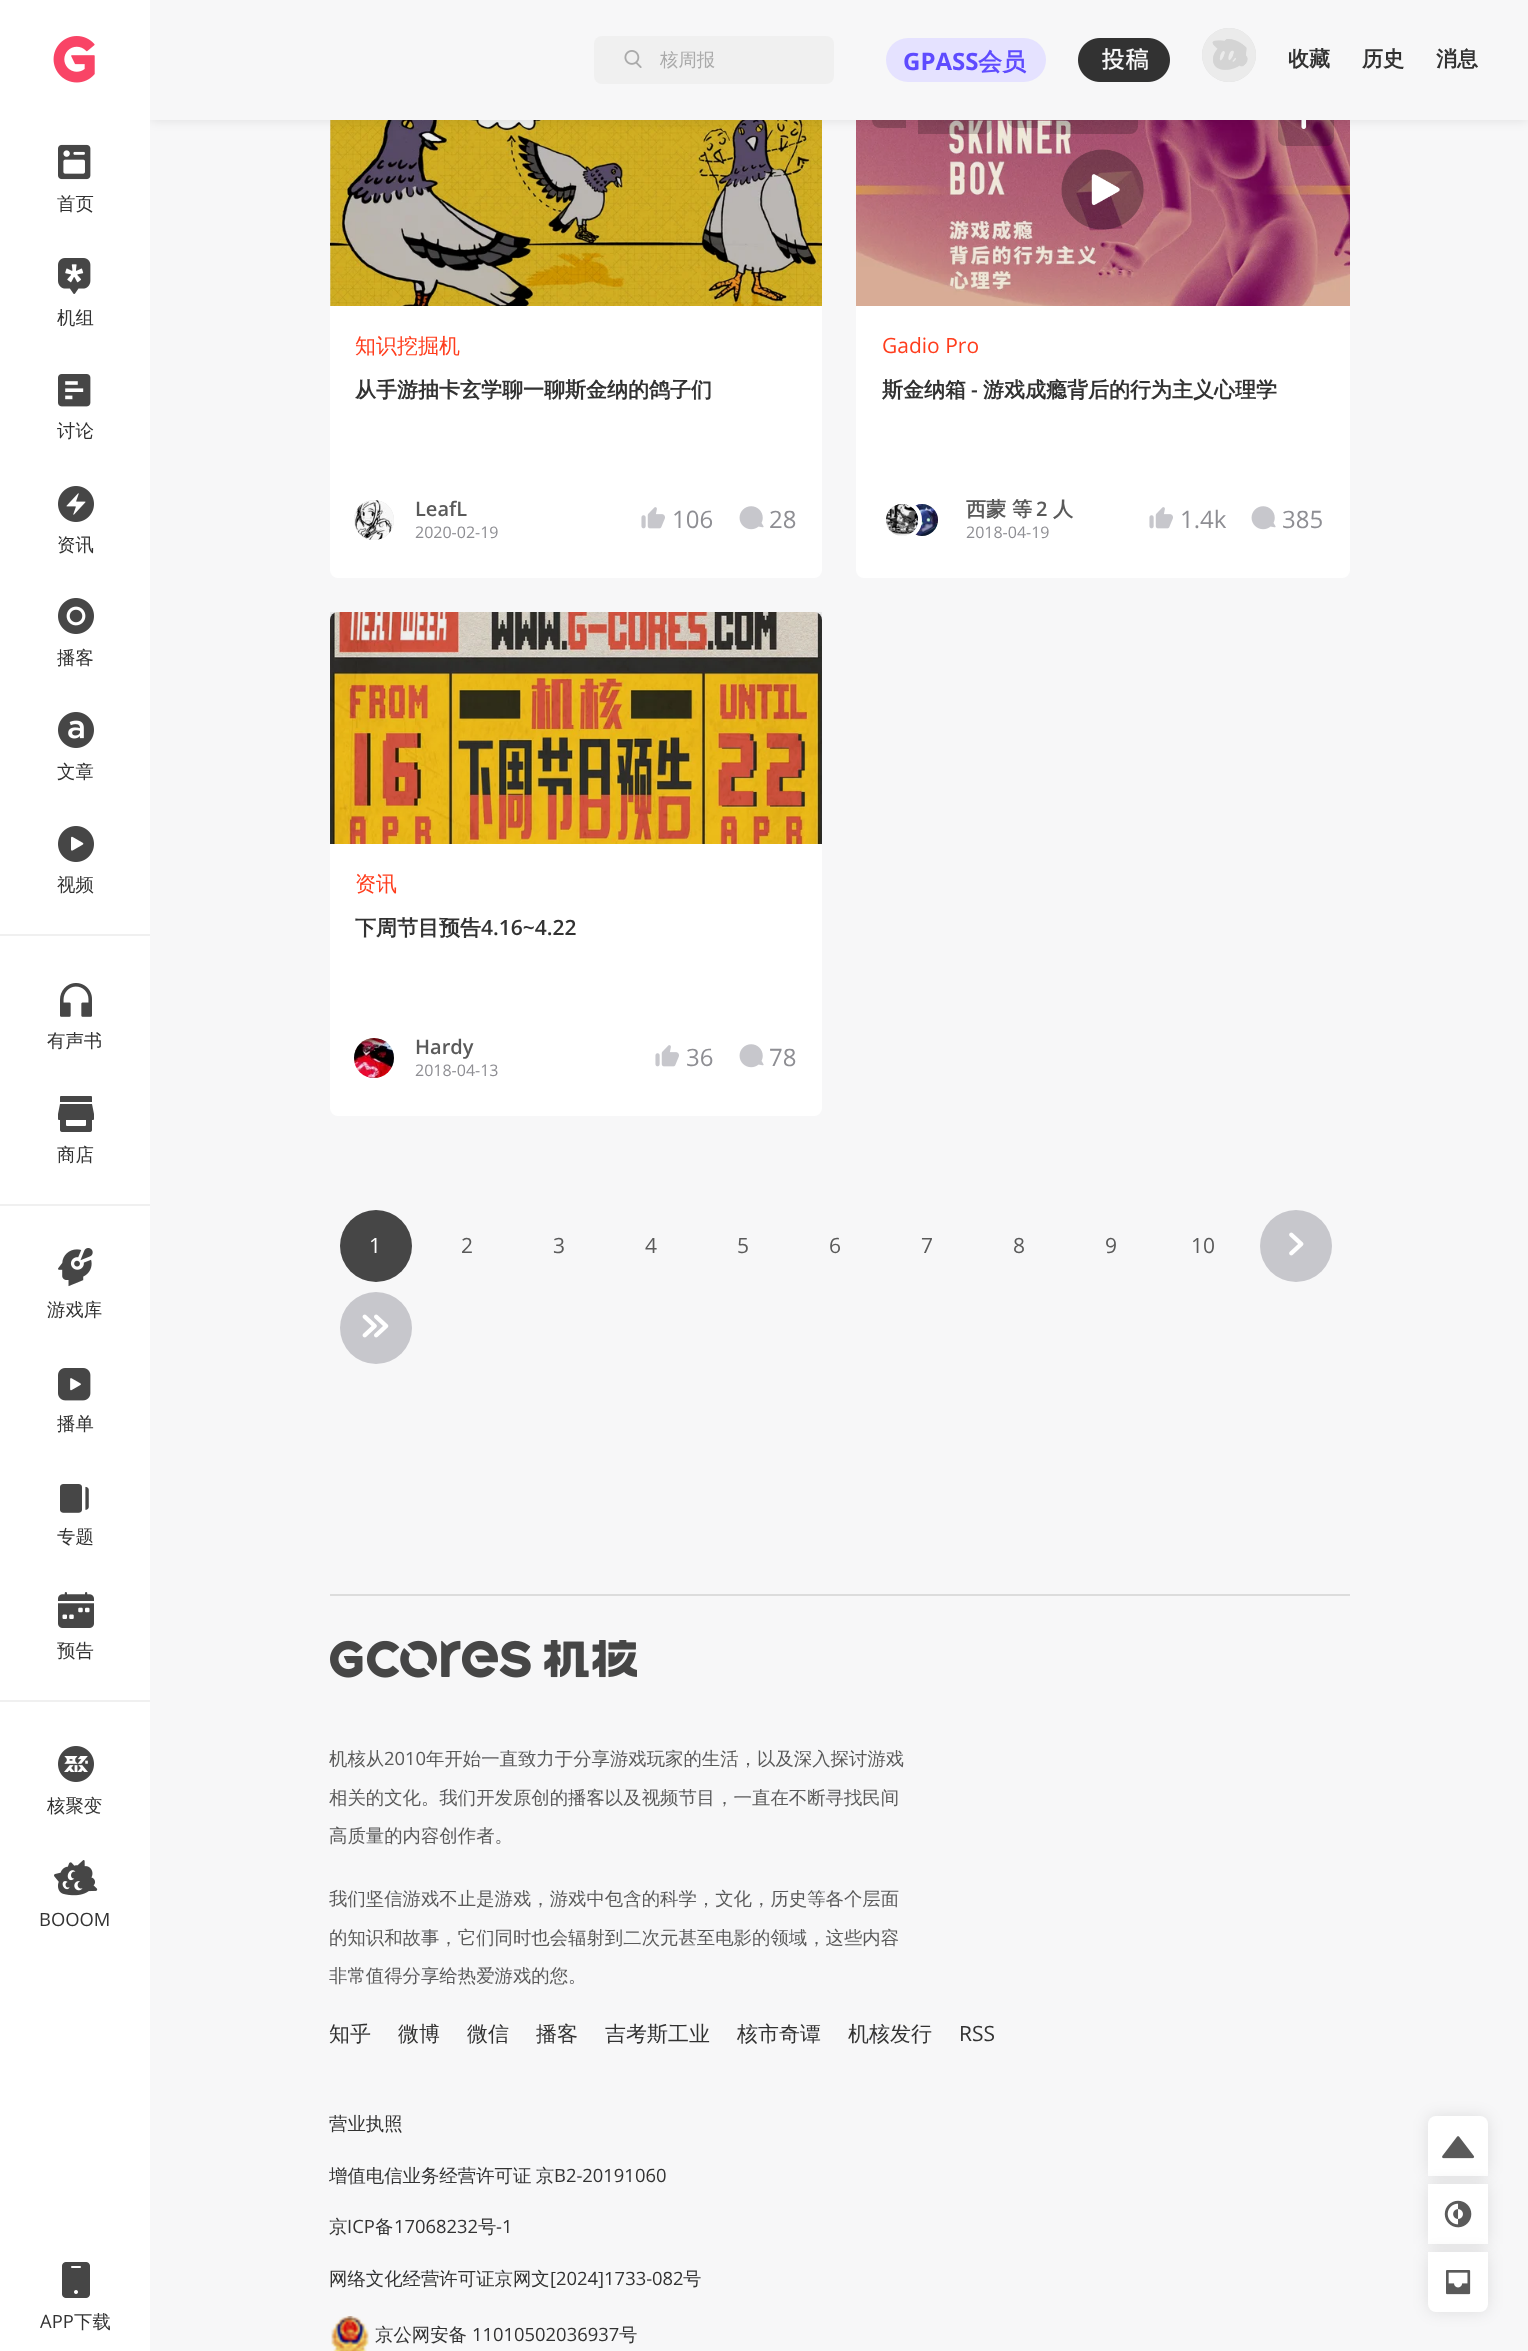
async function draw(canvas) {
  canvas.width = 1528;
  canvas.height = 2351;
  const ctx = canvas.getContext('2d');
  ctx.miterLimit = 4;
  ctx.fontKerning = 'normal';
  function label(s, x, y, font, color) {
    ctx.font = font;
    ctx.fillStyle = color;
    ctx.fillText(s, x, y);
  }
  function rect(x, y, w, h, color) {
    ctx.fillStyle = color;
    ctx.fillRect(x, y, w, h);
  }
  function roundedRect(x, y, w, h, r, color) {
    ctx.fillStyle = color;
    ctx.beginPath();
    ctx.roundRect(x, y, w, h, r);
    ctx.fill();
  }
  async function image(src, x, y, w, h) {
    const img = new Image();
    img.src = src;
    await img.decode();
    ctx.drawImage(img, x, y, w, h);
  }

  rect(0, 0, 1528, 2351, '#f7f7f8');
  roundedRect(330, 74, 492, 504, 8, '#fff');
  rect(330, 120, 3, 186, '#f6f6f6');
  await image('assets/img21.png', 330, 120, 492, 186);
  rect(330, 120, 492, 186, '#0000000f');
  roundedRect(856, 74, 494, 504, 8, '#fff');
  await image('assets/img25.png', 856, 120, 494, 186);
  rect(856, 120, 494, 186, '#0000000f');
  ctx.fillStyle = '#00000033';
  ctx.beginPath();
  ctx.roundRect(872, 86, 34, 42, [8, 0, 0, 8]);
  ctx.fill();
  ctx.beginPath();
  ctx.roundRect(918, 82, 74, 52, [0, 8, 8, 0]);
  ctx.fill();
  ctx.beginPath();
  ctx.roundRect(1008, 86, 30, 42, [8, 0, 0, 8]);
  ctx.fill();
  ctx.beginPath();
  ctx.roundRect(1050, 82, 88, 52, [0, 8, 8, 0]);
  ctx.fill();
  roundedRect(1278, 90, 56, 56, 8, '#00000033');
  await image('assets/img26.png', 1301, 120, 6, 9);
  ctx.fillStyle = '#0000001a';
  ctx.filter = 'blur(6px)';
  ctx.beginPath();
  ctx.rect(150, 0, 1378, 120);
  ctx.fill();
  ctx.filter = 'none';
  rect(0, 0, 150, 2351, '#fff');
  await image('assets/img1.png', 53, 36, 42, 47);
  await image('assets/img2.png', 58, 144, 33, 36);
  label('首页', 57, 210, '500 18.4px WenQuanYi Zen Hei', '#323232');
  await image('assets/img3.png', 58, 258, 33, 36);
  label('机组', 57, 324, '500 18.4px WenQuanYi Zen Hei', '#323232');
  await image('assets/img4.png', 58, 374, 33, 33);
  label('讨论', 57, 437, '500 18.4px WenQuanYi Zen Hei', '#323232');
  await image('assets/img5.png', 58, 486, 36, 36);
  label('资讯', 57, 551, '500 18.4px WenQuanYi Zen Hei', '#323232');
  await image('assets/img6.png', 58, 598, 36, 36);
  label('播客', 57, 664, '500 18.4px WenQuanYi Zen Hei', '#323232');
  await image('assets/img7.png', 58, 712, 36, 36);
  label('文章', 57, 778, '500 18.4px WenQuanYi Zen Hei', '#323232');
  await image('assets/img8.png', 58, 826, 36, 36);
  label('视频', 57, 891, '500 18.4px WenQuanYi Zen Hei', '#323232');
  rect(0, 934, 150, 2, '#f0f0f0');
  await image('assets/img9.png', 60, 983, 32, 34);
  label('有声书', 47, 1047, '500 18.4px WenQuanYi Zen Hei', '#323232');
  await image('assets/img10.png', 58, 1096, 36, 36);
  label('商店', 57, 1161, '500 18.4px WenQuanYi Zen Hei', '#323232');
  rect(0, 1204, 150, 2, '#f0f0f0');
  await image('assets/img11.png', 58, 1248, 35, 39);
  label('游戏库', 47, 1316, '500 18.4px WenQuanYi Zen Hei', '#323232');
  await image('assets/img12.png', 58, 1368, 33, 33);
  label('播单', 57, 1430, '500 18.4px WenQuanYi Zen Hei', '#323232');
  await image('assets/img13.png', 60, 1484, 29, 29);
  label('专题', 57, 1543, '500 18.4px WenQuanYi Zen Hei', '#323232');
  await image('assets/img14.png', 58, 1592, 36, 36);
  label('预告', 57, 1657, '500 18.4px WenQuanYi Zen Hei', '#323232');
  rect(0, 1700, 150, 2, '#f0f0f0');
  await image('assets/img15.png', 58, 1746, 36, 36);
  label('核聚变', 47, 1812, '500 18.4px WenQuanYi Zen Hei', '#323232');
  await image('assets/img16.png', 54, 1860, 44, 36);
  label('BOOOM', 39, 1926, '18.4px Open Sans', '#323232');
  await image('assets/img17.png', 62, 2262, 28, 36);
  label('APP', 40, 2328, '18.4px Open Sans', '#323232');
  label('下载', 74, 2328, '500 18.4px WenQuanYi Zen Hei', '#323232');
  rect(150, 0, 1378, 120, '#f7f7f8');
  roundedRect(594, 36, 240, 48, 8, '#f0f0f0');
  await image('assets/img18.png', 624, 50, 18, 18);
  label('核周报', 660, 66, '500 18.4px WenQuanYi Zen Hei', '#aaa');
  roundedRect(886, 38, 160, 44, 22, '#e5e2ff');
  label('GPASS', 903, 70, 'bold 24px Open Sans', '#5e4bff');
  label('会员', 978, 70, 'bold 24px WenQuanYi Zen Hei', '#5e4bff');
  await image('assets/img19.png', 1078, 38, 92, 44);
  ctx.fillStyle = '#dcdcdc';
  ctx.beginPath();
  ctx.arc(1229, 55, 27, 0, 2 * Math.PI);
  ctx.fill();
  await image('assets/img20.png', 1202, 28, 54, 54);
  label('收藏', 1288, 66, 'bold 21px WenQuanYi Zen Hei', '#323232');
  label('历史', 1362, 66, 'bold 21px WenQuanYi Zen Hei', '#323232');
  label('消息', 1436, 66, 'bold 21px WenQuanYi Zen Hei', '#323232');
  label('知识挖掘机', 355, 353, '500 21px WenQuanYi Zen Hei', '#ff3d1d');
  label('从手游抽卡玄学聊一聊斯金纳的鸽子们', 355, 397, 'bold 21px WenQuanYi Zen Hei', '#323232');
  ctx.fillStyle = '#dcdcdc';
  ctx.beginPath();
  ctx.arc(374, 520, 20, 0, 2 * Math.PI);
  ctx.fill();
  await image('assets/img22.png', 354, 500, 40, 40);
  label('LeafL', 415, 516, '600 20px Open Sans', '#5a5a5a');
  label('2020-02-19', 415, 538, '16px Open Sans', '#8e8e93');
  await image('assets/img23.png', 641, 507, 24, 22);
  label('106', 672, 528, '24px Open Sans', '#8e8e93');
  await image('assets/img24.png', 739, 506, 25, 24);
  label('28', 769, 528, '24px Open Sans', '#8e8e93');
  await image('assets/img27.png', 1061, 149, 83, 81);
  label('Gadio Pro', 882, 353, '21px Open Sans', '#ff3d1d');
  label('斯金纳箱', 882, 397, 'bold 21px WenQuanYi Zen Hei', '#323232');
  label('-', 971, 397, '600 21px Open Sans', '#323232');
  label('游戏成瘾背后的行为主义心理学', 983, 397, 'bold 21px WenQuanYi Zen Hei', '#323232');
  ctx.fillStyle = '#e6e6e6';
  ctx.beginPath();
  ctx.arc(922, 520, 18, 0, 2 * Math.PI);
  ctx.fill();
  ctx.strokeStyle = '#fff';
  ctx.lineWidth = 4;
  ctx.stroke();
  await image('assets/img29.png', 911, 504, 27, 32);
  ctx.fillStyle = '#0000001a';
  ctx.beginPath();
  ctx.arc(902, 520, 18, 0, 2 * Math.PI);
  ctx.fill();
  ctx.stroke();
  await image('assets/img28.png', 886, 504, 32, 32);
  label('西蒙 等', 966, 516, 'bold 20px WenQuanYi Zen Hei', '#5a5a5a');
  label('2', 1036, 516, '600 20px Open Sans', '#5a5a5a');
  label('人', 1053, 516, 'bold 20px WenQuanYi Zen Hei', '#5a5a5a');
  label('2018-04-19', 966, 538, '16px Open Sans', '#8e8e93');
  await image('assets/img23.png', 1149, 507, 24, 22);
  label('1.4k', 1180, 528, '24px Open Sans', '#8e8e93');
  await image('assets/img24.png', 1251, 506, 25, 24);
  label('385', 1282, 528, '24px Open Sans', '#8e8e93');
  roundedRect(330, 612, 492, 504, 8, '#fff');
  await image('assets/img30.png', 330, 612, 492, 232);
  rect(330, 612, 492, 232, '#0000000f');
  label('资讯', 355, 891, '500 21px WenQuanYi Zen Hei', '#ff3d1d');
  label('下周节目预告', 355, 935, 'bold 21px WenQuanYi Zen Hei', '#323232');
  label('4.16~4.22', 481, 935, '600 21px Open Sans', '#323232');
  ctx.fillStyle = '#dcdcdc';
  ctx.beginPath();
  ctx.arc(374, 1058, 20, 0, 2 * Math.PI);
  ctx.fill();
  await image('assets/img31.png', 354, 1038, 40, 40);
  label('Hardy', 415, 1054, '600 20px Open Sans', '#5a5a5a');
  label('2018-04-13', 415, 1076, '16px Open Sans', '#8e8e93');
  await image('assets/img23.png', 655, 1045, 24, 22);
  label('36', 686, 1066, '24px Open Sans', '#8e8e93');
  await image('assets/img24.png', 739, 1044, 25, 24);
  label('78', 769, 1066, '24px Open Sans', '#8e8e93');
  ctx.fillStyle = '#464646';
  ctx.beginPath();
  ctx.arc(376, 1246, 36, 0, 2 * Math.PI);
  ctx.fill();
  label('1', 369, 1253, '21px Open Sans', '#fff');
  label('2', 461, 1253, '21px Open Sans', '#5a5a5a');
  label('3', 553, 1253, '21px Open Sans', '#5a5a5a');
  label('4', 645, 1253, '21px Open Sans', '#5a5a5a');
  label('5', 737, 1253, '21px Open Sans', '#5a5a5a');
  label('6', 829, 1253, '21px Open Sans', '#5a5a5a');
  label('7', 921, 1253, '21px Open Sans', '#5a5a5a');
  label('8', 1013, 1253, '21px Open Sans', '#5a5a5a');
  label('9', 1105, 1253, '21px Open Sans', '#5a5a5a');
  label('10', 1191, 1253, '21px Open Sans', '#5a5a5a');
  ctx.fillStyle = '#c7c7cc';
  ctx.beginPath();
  ctx.arc(1296, 1246, 36, 0, 2 * Math.PI);
  ctx.fill();
  await image('assets/img32.png', 1289, 1232, 15, 24);
  ctx.beginPath();
  ctx.arc(376, 1328, 36, 0, 2 * Math.PI);
  ctx.fill();
  await image('assets/img33.png', 362, 1314, 27, 24);
  rect(330, 1594, 1020, 2, '#dcdcdc');
  await image('assets/img34.png', 330, 1640, 307, 38);
  label('机核从', 329, 1765, '500 18.4px WenQuanYi Zen Hei', '#5a5a5a');
  label('2010', 384, 1765, '18.4px Open Sans', '#5a5a5a');
  label('年开始一直致力于分享游戏玩家的生活，以及深入探讨游戏', 426, 1765, '500 18.4px WenQuanYi Zen Hei', '#5a5a5a');
  label('相关的文化。我们开发原创的播客以及视频节目，一直在不断寻找民间', 329, 1804, '500 18.4px WenQuanYi Zen Hei', '#5a5a5a');
  label('高质量的内容创作者。', 329, 1842, '500 18.4px WenQuanYi Zen Hei', '#5a5a5a');
  label('我们坚信游戏不止是游戏，游戏中包含的科学，文化，历史等各个层面', 329, 1905, '500 18.4px WenQuanYi Zen Hei', '#5a5a5a');
  label('的知识和故事，它们同时也会辐射到二次元甚至电影的领域，这些内容', 329, 1944, '500 18.4px WenQuanYi Zen Hei', '#5a5a5a');
  label('非常值得分享给热爱游戏的您。', 329, 1982, '500 18.4px WenQuanYi Zen Hei', '#5a5a5a');
  label('知乎', 329, 2041, '500 21px WenQuanYi Zen Hei', '#323232');
  label('微博', 398, 2041, '500 21px WenQuanYi Zen Hei', '#323232');
  label('微信', 467, 2041, '500 21px WenQuanYi Zen Hei', '#323232');
  label('播客', 536, 2041, '500 21px WenQuanYi Zen Hei', '#323232');
  label('吉考斯工业', 605, 2041, '500 21px WenQuanYi Zen Hei', '#323232');
  label('核市奇谭', 737, 2041, '500 21px WenQuanYi Zen Hei', '#323232');
  label('机核发行', 848, 2041, '500 21px WenQuanYi Zen Hei', '#323232');
  label('RSS', 959, 2041, '21px Open Sans', '#323232');
  label('营业执照', 329, 2130, '500 18.4px WenQuanYi Zen Hei', '#323232');
  ctx.wordSpacing = '-1px';
  label('增值电信业务经营许可证 京', 329, 2182, '500 18.4px WenQuanYi Zen Hei', '#323232');
  ctx.wordSpacing = '0px';
  label('B2-20191060', 554, 2182, '18.4px Open Sans', '#323232');
  label('京', 329, 2233, '500 18.4px WenQuanYi Zen Hei', '#323232');
  label('ICP', 347, 2233, '18.4px Open Sans', '#323232');
  label('备', 375, 2233, '500 18.4px WenQuanYi Zen Hei', '#323232');
  label('17068232', 394, 2233, '18.4px Open Sans', '#323232');
  label('号', 478, 2233, '500 18.4px WenQuanYi Zen Hei', '#323232');
  label('-1', 496, 2233, '18.4px Open Sans', '#323232');
  label('网络文化经营许可证京网文', 329, 2285, '500 18.4px WenQuanYi Zen Hei', '#323232');
  label('[2024]1733-082', 550, 2285, '18.4px Open Sans', '#323232');
  label('号', 683, 2285, '500 18.4px WenQuanYi Zen Hei', '#323232');
  await image('assets/img35.png', 331, 2316, 38, 35);
  label('京公网安备', 375, 2341, '500 18.4px WenQuanYi Zen Hei', '#323232');
  label('11010502036937', 472, 2341, '18.4px Open Sans', '#323232');
  label('号', 619, 2341, '500 18.4px WenQuanYi Zen Hei', '#323232');
  ctx.fillStyle = '#0000001a';
  ctx.filter = 'blur(8px)';
  ctx.beginPath();
  ctx.roundRect(1428, 2116, 60, 60, 8);
  ctx.fill();
  ctx.filter = 'none';
  ctx.fillStyle = '#fff';
  ctx.beginPath();
  ctx.roundRect(1428, 2116, 60, 60, [8, 8, 0, 0]);
  ctx.fill();
  await image('assets/img36.png', 1442, 2136, 33, 23);
  ctx.fillStyle = '#0000001a';
  ctx.filter = 'blur(8px)';
  ctx.beginPath();
  ctx.rect(1428, 2184, 60, 60);
  ctx.fill();
  ctx.filter = 'none';
  rect(1428, 2184, 60, 60, '#fff');
  await image('assets/img37.png', 1444, 2200, 28, 28);
  ctx.fillStyle = '#0000001a';
  ctx.filter = 'blur(8px)';
  ctx.beginPath();
  ctx.roundRect(1428, 2252, 60, 60, 8);
  ctx.fill();
  ctx.filter = 'none';
  ctx.fillStyle = '#fff';
  ctx.beginPath();
  ctx.roundRect(1428, 2252, 60, 60, [0, 0, 8, 8]);
  ctx.fill();
  await image('assets/img38.png', 1446, 2270, 25, 25);
}

draw(document.querySelector('canvas'));
